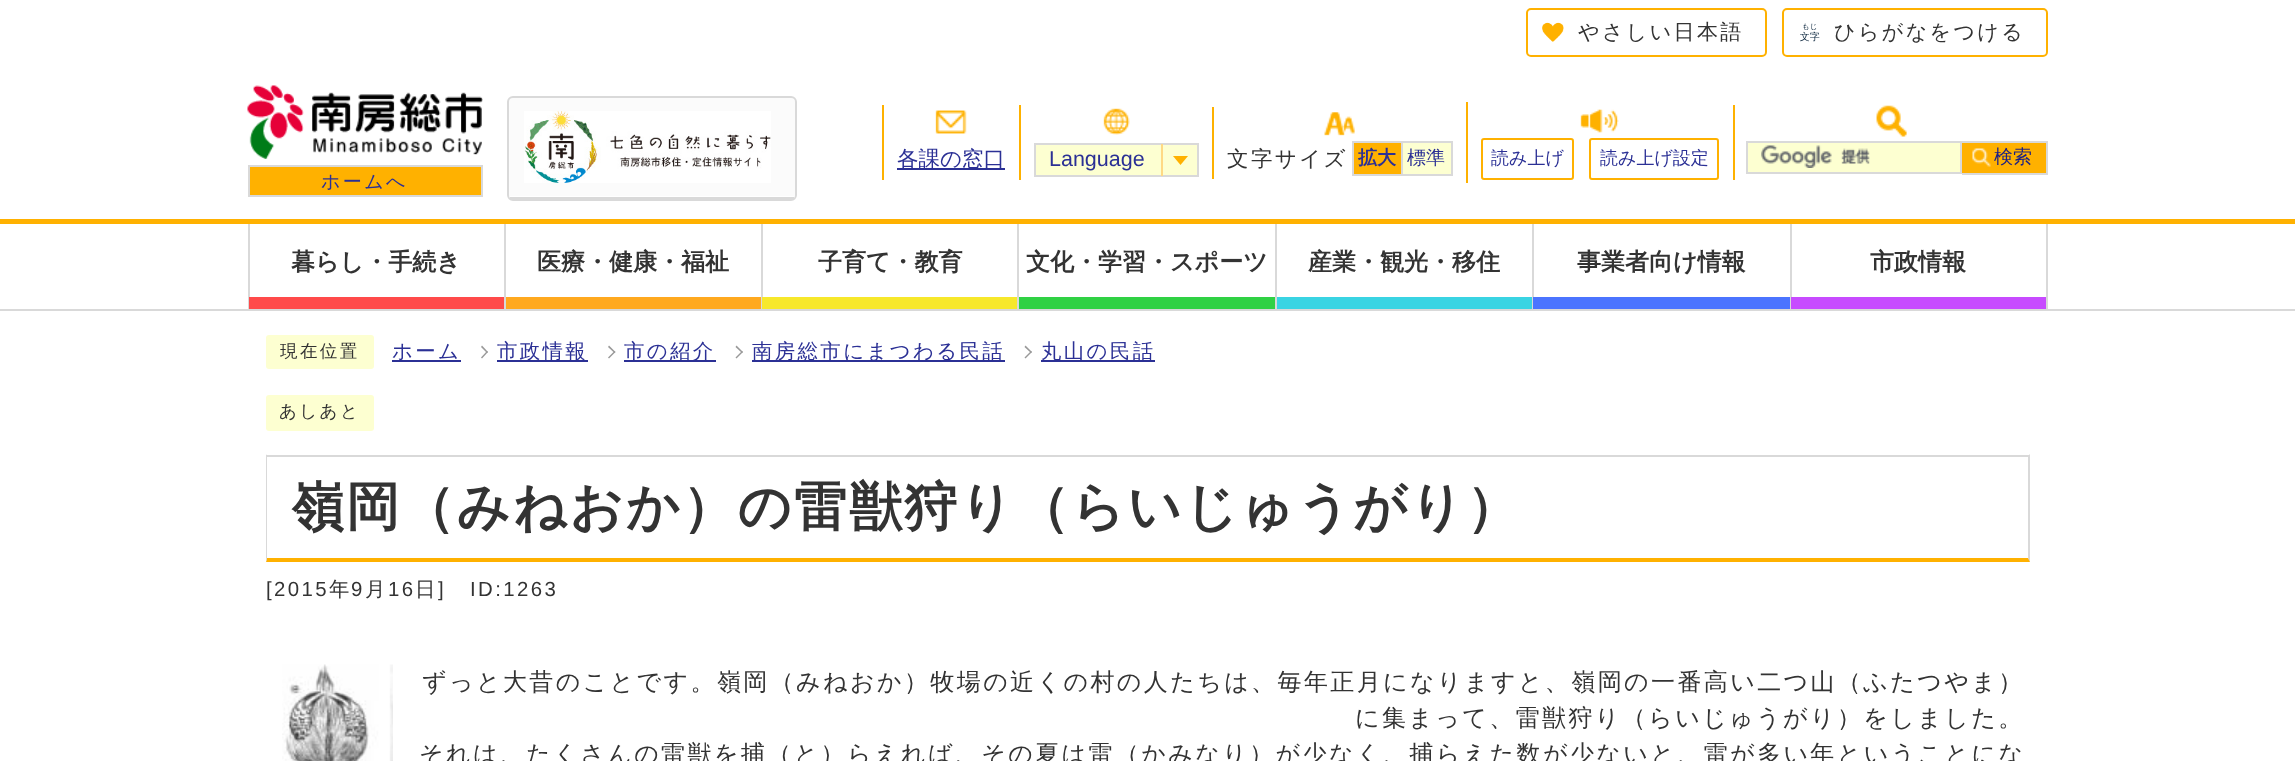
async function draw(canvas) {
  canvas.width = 2295;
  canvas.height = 761;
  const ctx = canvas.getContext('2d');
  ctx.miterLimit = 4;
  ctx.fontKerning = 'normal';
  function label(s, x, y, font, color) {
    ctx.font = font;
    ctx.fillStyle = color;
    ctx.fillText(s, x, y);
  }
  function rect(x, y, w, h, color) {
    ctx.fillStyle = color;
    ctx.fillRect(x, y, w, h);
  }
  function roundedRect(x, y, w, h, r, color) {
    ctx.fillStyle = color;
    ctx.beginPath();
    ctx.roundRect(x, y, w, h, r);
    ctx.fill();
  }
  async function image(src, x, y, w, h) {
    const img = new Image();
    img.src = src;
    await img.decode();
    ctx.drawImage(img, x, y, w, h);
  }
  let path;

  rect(0, 0, 2295, 761, '#fff');
  await image('assets/img1.png', 1542, 22, 22, 20);
  ctx.beginPath();
  ctx.roundRect(1527, 9, 239, 47, 4);
  ctx.strokeStyle = '#ffb100';
  ctx.lineWidth = 2;
  ctx.stroke();
  ctx.letterSpacing = '2.4px';
  label('やさしい日本語', 1578, 39, '500 21px WenQuanYi Zen Hei', '#333');
  await image('assets/img2.png', 1800, 23, 20, 19);
  ctx.beginPath();
  ctx.roundRect(1783, 9, 264, 47, 4);
  ctx.stroke();
  label('ひらがなをつける', 1834, 39, '500 21px WenQuanYi Zen Hei', '#333');
  ctx.fillStyle = '#fbfbfb';
  path = new Path2D('M513 98H790C793 98 795 100 795 102V195C795 196 793 196 790 196H513C511 196 508 196 508 195V102C508 100 511 98 513 98Z');
  ctx.fill(path);
  ctx.beginPath();
  ctx.roundRect(508, 97, 288, 103, 5);
  ctx.strokeStyle = '#d9d9d9';
  ctx.stroke();
  rect(510, 197, 284, 2, '#d9d9d9');
  await image('assets/img3.png', 524, 111, 247, 72);
  await image('assets/img4.png', 935, 110, 32, 24);
  rect(882, 105, 2, 75, '#feb100');
  rect(897, 168, 108, 2, '#2b3095');
  ctx.letterSpacing = '0px';
  label('各課の窓口', 897, 166, '500 21.5px WenQuanYi Zen Hei', '#2b3095');
  await image('assets/img5.png', 1103, 108, 27, 27);
  rect(1019, 105, 2, 75, '#feb100');
  ctx.fillStyle = '#fdffd1';
  ctx.beginPath();
  ctx.rect(1035, 144, 163, 32);
  ctx.fill();
  ctx.stroke();
  label('Language', 1049, 166, '21.5px Liberation Sans', '#2b3095');
  rect(1161, 144, 2, 32, '#ffd984');
  ctx.fillStyle = '#ffb100';
  path = new Path2D('M1173 156H1188L1180.5 165Z');
  ctx.fill(path);
  await image('assets/img6.png', 1324, 112, 31, 24);
  rect(1212, 107, 2, 72, '#feb100');
  ctx.letterSpacing = '2.4px';
  label('文字サイズ', 1227, 166, '500 21.5px WenQuanYi Zen Hei', '#333');
  ctx.fillStyle = '#ffb100';
  ctx.beginPath();
  ctx.rect(1353, 142, 49, 33);
  ctx.fill();
  ctx.stroke();
  ctx.letterSpacing = '0px';
  label('拡大', 1358, 164, 'bold 19px WenQuanYi Zen Hei', '#2b3095');
  rect(1403, 143, 48, 31, '#fdffd1');
  label('標準', 1407, 164, '500 19px WenQuanYi Zen Hei', '#2b3095');
  rect(1403, 141, 49, 2, '#d9d9d9');
  rect(1451, 141, 2, 35, '#d9d9d9');
  rect(1403, 174, 49, 2, '#d9d9d9');
  await image('assets/img7.png', 1580, 109, 39, 24);
  rect(1466, 102, 2, 81, '#feb100');
  ctx.beginPath();
  ctx.roundRect(1482, 139, 91, 40, 2);
  ctx.strokeStyle = '#ffb100';
  ctx.stroke();
  label('読み上げ', 1491, 164, '500 18px WenQuanYi Zen Hei', '#2b3095');
  ctx.beginPath();
  ctx.roundRect(1590, 139, 128, 40, 2);
  ctx.stroke();
  label('読み上げ設定', 1600, 164, '500 18px WenQuanYi Zen Hei', '#2b3095');
  await image('assets/img8.png', 1876, 105, 31, 32);
  rect(1733, 105, 2, 75, '#feb100');
  rect(1748, 143, 212, 29, '#fdffd1');
  await image('assets/img9.png', 1761, 145, 109, 23);
  ctx.strokeStyle = '#d9d9d9';
  ctx.strokeRect(1747, 142, 214, 31);
  rect(1962, 143, 84, 30, '#ffb100');
  await image('assets/img10.png', 1972, 148, 19, 19);
  rect(1962, 141, 86, 2, '#d9d9d9');
  rect(2046, 141, 2, 33, '#d9d9d9');
  rect(1962, 173, 86, 2, '#d9d9d9');
  label('検索', 1994, 163, '500 19px WenQuanYi Zen Hei', '#1a1f86');
  await image('assets/img11.png', 247, 85, 236, 74);
  ctx.fillStyle = '#ffb100';
  ctx.beginPath();
  ctx.rect(249, 166, 233, 30);
  ctx.fill();
  ctx.stroke();
  ctx.letterSpacing = '2.4px';
  label('ホームへ', 321, 188, '500 19px WenQuanYi Zen Hei', '#2b3095');
  rect(0, 219, 2295, 5, '#ffb100');
  rect(0, 309, 2295, 2, '#d9d9d9');
  rect(504, 224, 2, 85, '#d9d9d9');
  rect(248, 224, 2, 85, '#d9d9d9');
  rect(249, 297, 255, 12, '#ff4a4a');
  ctx.letterSpacing = '0px';
  label('暮らし・手続き', 291, 270, 'bold 24px WenQuanYi Zen Hei', '#333');
  rect(761, 224, 2, 85, '#d9d9d9');
  rect(506, 297, 255, 12, '#ffa91f');
  label('医療・健康・福祉', 537, 270, 'bold 24px WenQuanYi Zen Hei', '#333');
  rect(1017, 224, 2, 85, '#d9d9d9');
  rect(762, 297, 255, 12, '#f7e82b');
  label('子育て・教育', 818, 270, 'bold 24px WenQuanYi Zen Hei', '#333');
  rect(1275, 224, 2, 85, '#d9d9d9');
  rect(1019, 297, 256, 12, '#30d144');
  label('文化・学習・スポーツ', 1026, 270, 'bold 24px WenQuanYi Zen Hei', '#333');
  rect(1532, 224, 2, 85, '#d9d9d9');
  rect(1277, 297, 255, 12, '#39d4e3');
  label('産業・観光・移住', 1308, 270, 'bold 24px WenQuanYi Zen Hei', '#333');
  rect(1790, 224, 2, 85, '#d9d9d9');
  rect(1533, 297, 257, 12, '#4b74ff');
  label('事業者向け情報', 1577, 270, 'bold 24px WenQuanYi Zen Hei', '#333');
  rect(2046, 224, 2, 85, '#d9d9d9');
  rect(1791, 297, 255, 12, '#c74bff');
  label('市政情報', 1870, 270, 'bold 24px WenQuanYi Zen Hei', '#333');
  roundedRect(266, 335, 108, 34, 3, '#fdffd1');
  ctx.letterSpacing = '2.4px';
  label('現在位置', 280, 357, '500 17.5px WenQuanYi Zen Hei', '#333');
  rect(392, 360, 69, 2, '#2b3095');
  label('ホーム', 392, 358, '500 20.4px WenQuanYi Zen Hei', '#2b3095');
  ctx.fillStyle = '#999';
  path = new Path2D('M481 347L482 345.5L488 352L487 353Z');
  ctx.fill(path);
  path = new Path2D('M481 357.5L487 351L488 352L482 358.5Z');
  ctx.fill(path);
  rect(497, 360, 91, 2, '#2b3095');
  label('市政情報', 497, 358, '500 20.4px WenQuanYi Zen Hei', '#2b3095');
  ctx.fillStyle = '#999';
  path = new Path2D('M608 347L609 345.5L615.5 352L614.5 353Z');
  ctx.fill(path);
  path = new Path2D('M608 357.5L614.5 351L615.5 352L609 358.5Z');
  ctx.fill(path);
  rect(624, 360, 92, 2, '#2b3095');
  label('市の紹介', 624, 358, '500 20.4px WenQuanYi Zen Hei', '#2b3095');
  ctx.fillStyle = '#999';
  path = new Path2D('M735.5 347L736.5 345.5L743 352L742 353Z');
  ctx.fill(path);
  path = new Path2D('M735.5 357.5L742 351L743 352L736.5 358.5Z');
  ctx.fill(path);
  rect(752, 360, 253, 2, '#2b3095');
  label('南房総市にまつわる民話', 752, 358, '500 20.4px WenQuanYi Zen Hei', '#2b3095');
  ctx.fillStyle = '#999';
  path = new Path2D('M1024.5 347L1025.5 345.5L1032 352L1031 353Z');
  ctx.fill(path);
  path = new Path2D('M1024.5 357.5L1031 351L1032 352L1025.5 358.5Z');
  ctx.fill(path);
  rect(1041, 360, 114, 2, '#2b3095');
  label('丸山の民話', 1041, 358, '500 20.4px WenQuanYi Zen Hei', '#2b3095');
  roundedRect(266, 395, 108, 36, 3, '#fdffd1');
  label('あしあと', 279, 417, '500 17.5px WenQuanYi Zen Hei', '#333');
  rect(266, 455, 1764, 2, '#d9d9d9');
  path = new Path2D('M2030 454V562L2028 558V456Z');
  ctx.fill(path);
  ctx.fillStyle = '#ffb100';
  path = new Path2D('M2030 562H266L267 558H2028Z');
  ctx.fill(path);
  ctx.fillStyle = '#d9d9d9';
  path = new Path2D('M266 562V454L267 456V558Z');
  ctx.fill(path);
  label('嶺岡（みねおか）の雷獣狩り（らいじゅうがり）', 291, 525, 'bold 52.8px WenQuanYi Zen Hei', '#333');
  label('[2015', 266, 596, '20.4px Liberation Sans', '#333');
  label('年', 329, 596, '500 20.4px WenQuanYi Zen Hei', '#333');
  label('9', 351, 596, '20.4px Liberation Sans', '#333');
  label('月', 365, 596, '500 20.4px WenQuanYi Zen Hei', '#333');
  label('16', 388, 596, '20.4px Liberation Sans', '#333');
  label('日', 415, 596, '500 20.4px WenQuanYi Zen Hei', '#333');
  label(']', 438, 596, '20.4px Liberation Sans', '#333');
  label('ID:1263', 470, 596, '20.4px Liberation Sans', '#333');
  await image('assets/img12.png', 282, 664, 111, 97);
  label('ずっと大昔のことです。嶺岡（みねおか）牧場の近くの村の人たちは、毎年正月になりますと、嶺岡の一番高い二つ山（ふたつやま）', 422, 690, '500 24px WenQuanYi Zen Hei', '#333');
  label('に集まって、雷獣狩り（らいじゅうがり）をしました。', 1355, 726, '500 24px WenQuanYi Zen Hei', '#333');
  label('それは、たくさんの雷獣を捕（と）らえれば、その夏は雷（かみなり）が少なく、捕らえた数が少ないと、雷が多い年ということにな', 419, 762, '500 24px WenQuanYi Zen Hei', '#333');
}

draw(document.querySelector('canvas'));
